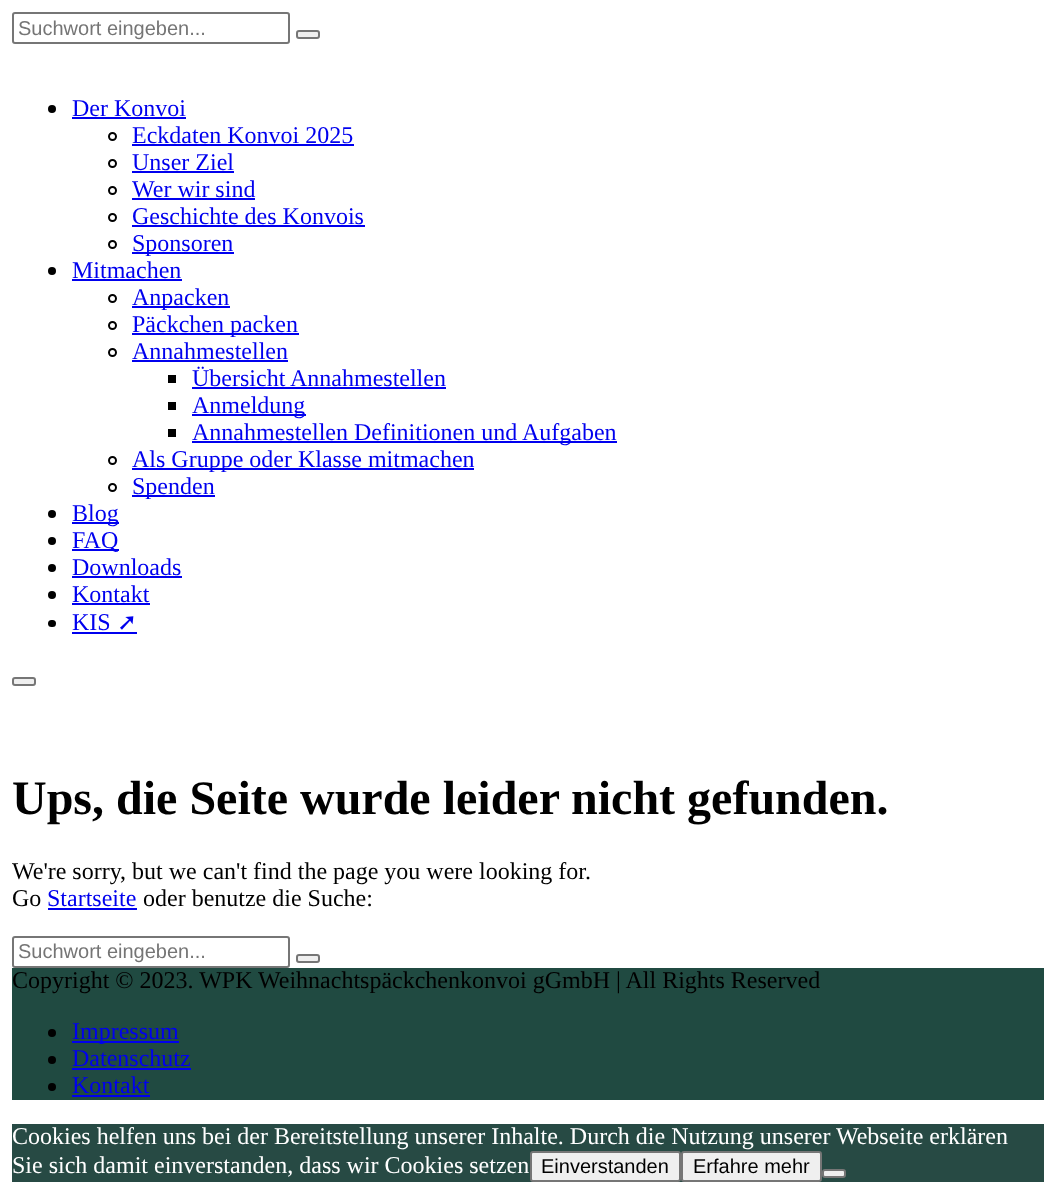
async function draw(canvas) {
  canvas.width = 1055;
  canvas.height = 1193;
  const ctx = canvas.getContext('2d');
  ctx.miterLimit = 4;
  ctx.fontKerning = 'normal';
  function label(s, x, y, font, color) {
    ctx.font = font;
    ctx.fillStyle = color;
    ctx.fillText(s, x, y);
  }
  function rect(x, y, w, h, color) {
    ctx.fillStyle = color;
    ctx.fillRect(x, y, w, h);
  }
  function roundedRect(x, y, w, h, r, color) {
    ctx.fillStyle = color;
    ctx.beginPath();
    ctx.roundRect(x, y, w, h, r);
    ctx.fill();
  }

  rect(0, 0, 1055, 1193, '#fff');
  ctx.beginPath();
  ctx.roundRect(13, 13, 276, 30, 2);
  ctx.strokeStyle = '#767676';
  ctx.lineWidth = 2;
  ctx.stroke();
  label('Suchwort eingeben...', 18, 35, '20px Liberation Sans', '#757575');
  ctx.fillStyle = '#efefef';
  ctx.beginPath();
  ctx.roundRect(297, 31, 22, 7, 2);
  ctx.fill();
  ctx.stroke();
  ctx.fillStyle = '#000';
  ctx.beginPath();
  ctx.arc(52, 109, 4, 0, 2 * Math.PI);
  ctx.fill();
  label('Der Konvoi', 72, 116, '24px Liberation Serif', '#00e');
  rect(72, 117, 114, 2, '#00e');
  ctx.beginPath();
  ctx.arc(112.5, 136.5, 3.5, 0, 2 * Math.PI);
  ctx.strokeStyle = '#000';
  ctx.stroke();
  label('Eckdaten Konvoi 2025', 132, 143, '24px Liberation Serif', '#00e');
  rect(132, 144, 222, 2, '#00e');
  ctx.beginPath();
  ctx.arc(112.5, 163.5, 3.5, 0, 2 * Math.PI);
  ctx.stroke();
  label('Unser Ziel', 132, 170, '24px Liberation Serif', '#00e');
  rect(132, 171, 102, 2, '#00e');
  ctx.beginPath();
  ctx.arc(112.5, 190.5, 3.5, 0, 2 * Math.PI);
  ctx.stroke();
  label('Wer wir sind', 132, 197, '24px Liberation Serif', '#00e');
  rect(132, 198, 123, 2, '#00e');
  ctx.beginPath();
  ctx.arc(112.5, 217.5, 3.5, 0, 2 * Math.PI);
  ctx.stroke();
  label('Geschichte des Konvois', 132, 224, '24px Liberation Serif', '#00e');
  rect(132, 225, 233, 2, '#00e');
  ctx.beginPath();
  ctx.arc(112.5, 244.5, 3.5, 0, 2 * Math.PI);
  ctx.stroke();
  rect(132, 252, 102, 2, '#00e');
  label('Sponsoren', 132, 251, '24px Liberation Serif', '#00e');
  ctx.fillStyle = '#000';
  ctx.beginPath();
  ctx.arc(52, 271, 4, 0, 2 * Math.PI);
  ctx.fill();
  label('Mitmachen', 72, 278, '24px Liberation Serif', '#00e');
  rect(72, 279, 110, 2, '#00e');
  ctx.beginPath();
  ctx.arc(112.5, 298.5, 3.5, 0, 2 * Math.PI);
  ctx.stroke();
  rect(132, 306, 98, 2, '#00e');
  label('Anpacken', 132, 305, '24px Liberation Serif', '#00e');
  ctx.beginPath();
  ctx.arc(112.5, 325.5, 3.5, 0, 2 * Math.PI);
  ctx.stroke();
  rect(132, 333, 167, 2, '#00e');
  label('Päckchen packen', 132, 332, '24px Liberation Serif', '#00e');
  ctx.beginPath();
  ctx.arc(112.5, 352.5, 3.5, 0, 2 * Math.PI);
  ctx.stroke();
  label('Annahmestellen', 132, 359, '24px Liberation Serif', '#00e');
  rect(132, 360, 156, 2, '#00e');
  rect(168, 375, 8, 8, '#000');
  label('Übersicht Annahmestellen', 192, 386, '24px Liberation Serif', '#00e');
  rect(192, 387, 254, 2, '#00e');
  rect(168, 402, 8, 8, '#000');
  rect(192, 414, 114, 2, '#00e');
  label('Anmeldung', 192, 413, '24px Liberation Serif', '#00e');
  rect(168, 429, 8, 8, '#000');
  rect(192, 441, 425, 2, '#00e');
  label('Annahmestellen Definitionen und Aufgaben', 192, 440, '24px Liberation Serif', '#00e');
  ctx.beginPath();
  ctx.arc(112.5, 460.5, 3.5, 0, 2 * Math.PI);
  ctx.stroke();
  rect(132, 468, 342, 2, '#00e');
  label('Als Gruppe oder Klasse mitmachen', 132, 467, '24px Liberation Serif', '#00e');
  ctx.beginPath();
  ctx.arc(112.5, 487.5, 3.5, 0, 2 * Math.PI);
  ctx.stroke();
  rect(132, 495, 83, 2, '#00e');
  label('Spenden', 132, 494, '24px Liberation Serif', '#00e');
  ctx.fillStyle = '#000';
  ctx.beginPath();
  ctx.arc(52, 514, 4, 0, 2 * Math.PI);
  ctx.fill();
  rect(72, 522, 47, 2, '#00e');
  label('Blog', 72, 521, '24px Liberation Serif', '#00e');
  ctx.fillStyle = '#000';
  ctx.beginPath();
  ctx.arc(52, 541, 4, 0, 2 * Math.PI);
  ctx.fill();
  rect(72, 549, 47, 2, '#00e');
  label('FAQ', 72, 548, '24px Liberation Serif', '#00e');
  ctx.fillStyle = '#000';
  ctx.beginPath();
  ctx.arc(52, 568, 4, 0, 2 * Math.PI);
  ctx.fill();
  label('Downloads', 72, 575, '24px Liberation Serif', '#00e');
  rect(72, 576, 110, 2, '#00e');
  ctx.fillStyle = '#000';
  ctx.beginPath();
  ctx.arc(52, 595, 4, 0, 2 * Math.PI);
  ctx.fill();
  label('Kontakt', 72, 602, '24px Liberation Serif', '#00e');
  rect(72, 603, 78, 2, '#00e');
  roundedRect(48, 620, 8, 7, 3.5, '#000');
  label('KIS', 72, 630, '24px Liberation Serif', '#00e');
  label('➚', 117, 630, '24px DejaVu Sans', '#00e');
  rect(72, 632, 65, 2, '#00e');
  ctx.fillStyle = '#efefef';
  ctx.beginPath();
  ctx.roundRect(13, 678, 22, 7, 2);
  ctx.fill();
  ctx.strokeStyle = '#767676';
  ctx.stroke();
  label('Ups, die Seite wurde leider nicht gefunden.', 12, 814, 'bold 48px Liberation Serif', '#000');
  label('We\'re sorry, but we can\'t find the page you were looking for.', 12, 879, '24px Liberation Serif', '#000');
  label('Go', 12, 906, '24px Liberation Serif', '#000');
  label('Startseite', 47, 906, '24px Liberation Serif', '#00e');
  rect(48, 908, 89, 2, '#00e');
  label('oder benutze die Suche:', 143, 906, '24px Liberation Serif', '#000');
  ctx.beginPath();
  ctx.roundRect(13, 937, 276, 30, 2);
  ctx.stroke();
  label('Suchwort eingeben...', 18, 958, '20px Liberation Sans', '#757575');
  ctx.fillStyle = '#efefef';
  ctx.beginPath();
  ctx.roundRect(297, 955, 22, 7, 2);
  ctx.fill();
  ctx.stroke();
  rect(12, 968, 1032, 132, '#204a41');
  label('Copyright © 2023. WPK Weihnachtspäckchenkonvoi gGmbH | All Rights Reserved', 12, 988, '24px Liberation Serif', '#000');
  ctx.beginPath();
  ctx.arc(52, 1033, 4, 0, 2 * Math.PI);
  ctx.fill();
  rect(72, 1041, 107, 2, '#00e');
  label('Impressum', 72, 1039, '24px Liberation Serif', '#00e');
  ctx.fillStyle = '#000';
  ctx.beginPath();
  ctx.arc(52, 1060, 4, 0, 2 * Math.PI);
  ctx.fill();
  label('Datenschutz', 72, 1066, '24px Liberation Serif', '#00e');
  rect(72, 1068, 119, 2, '#00e');
  ctx.fillStyle = '#000';
  ctx.beginPath();
  ctx.arc(52, 1087, 4, 0, 2 * Math.PI);
  ctx.fill();
  label('Kontakt', 72, 1093, '24px Liberation Serif', '#00e');
  rect(72, 1095, 78, 2, '#00e');
  rect(12, 1124, 1032, 58, '#274a44');
  label('Cookies helfen uns bei der Bereitstellung unserer Inhalte. Durch die Nutzung unserer Webseite erklären', 12, 1144, '24px Liberation Serif', '#fff');
  label('Sie sich damit einverstanden, dass wir Cookies setzen', 12, 1173, '24px Liberation Serif', '#fff');
  ctx.fillStyle = '#efefef';
  ctx.beginPath();
  ctx.roundRect(531, 1152, 149, 29, 2);
  ctx.fill();
  ctx.stroke();
  label('Einverstanden', 541, 1173, '20px Liberation Sans', '#000');
  ctx.fillStyle = '#efefef';
  ctx.beginPath();
  ctx.roundRect(682, 1152, 139, 29, 2);
  ctx.fill();
  ctx.stroke();
  label('Erfahre mehr', 693, 1173, '20px Liberation Sans', '#000');
  ctx.fillStyle = '#efefef';
  ctx.beginPath();
  ctx.roundRect(823, 1170, 22, 7, 2);
  ctx.fill();
  ctx.stroke();
}

draw(document.querySelector('canvas'));
